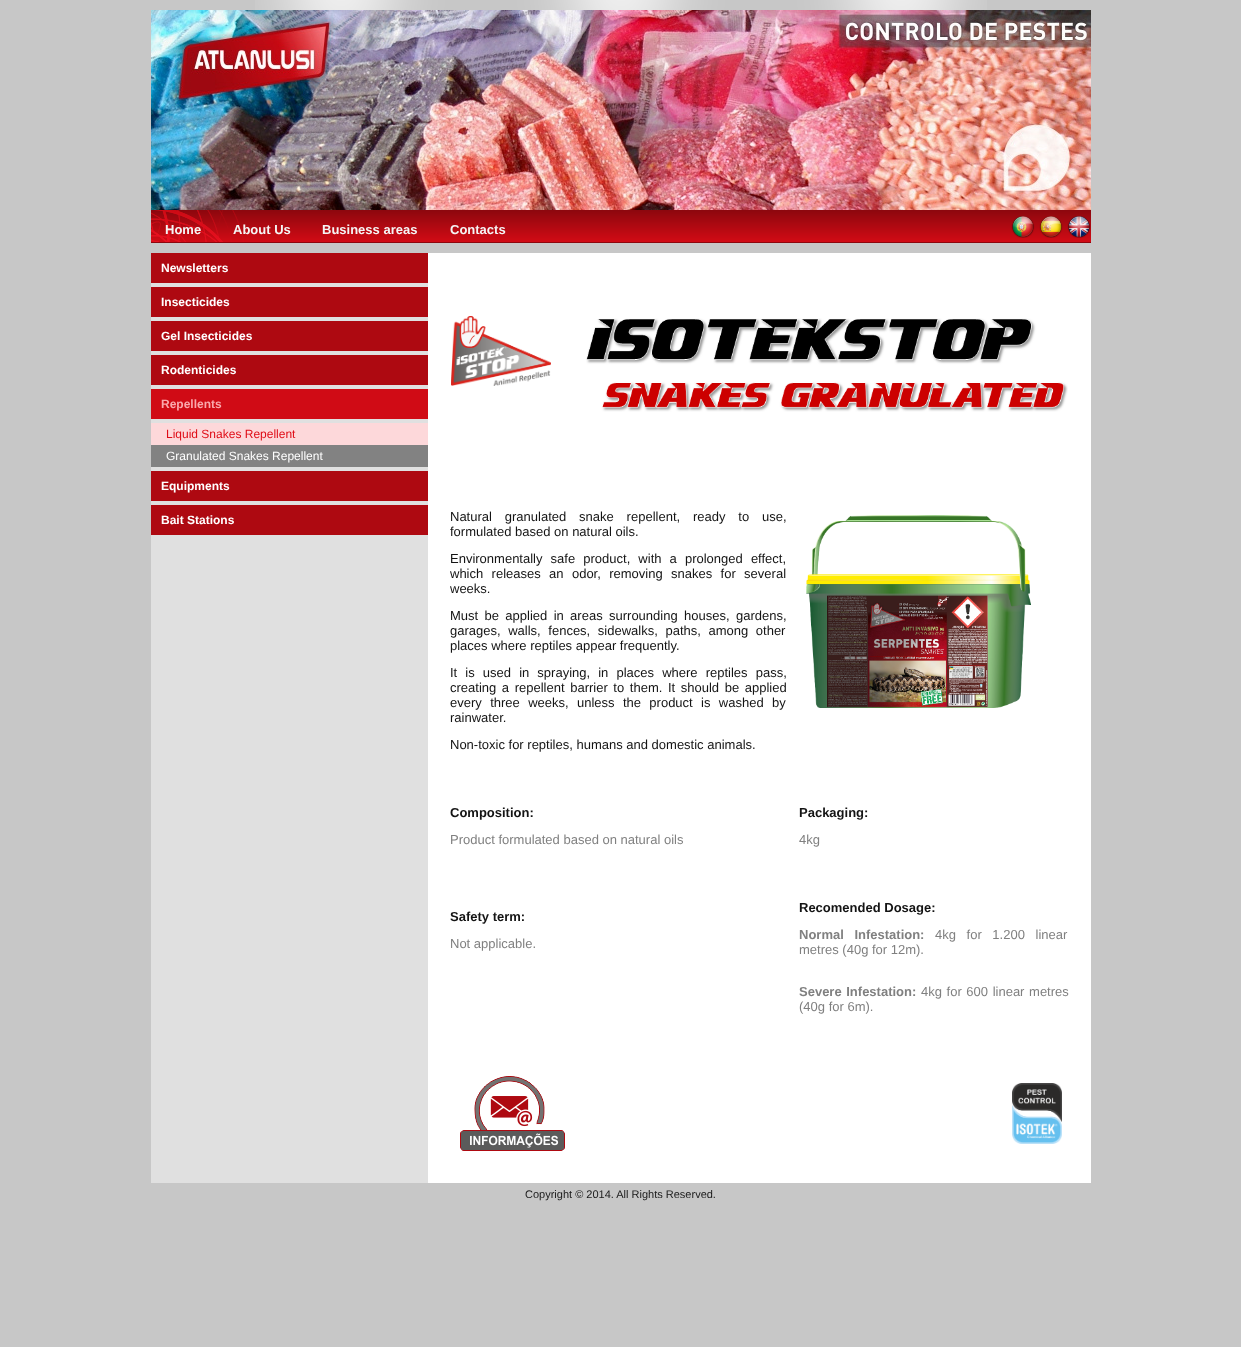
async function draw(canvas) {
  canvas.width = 1241;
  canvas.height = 1347;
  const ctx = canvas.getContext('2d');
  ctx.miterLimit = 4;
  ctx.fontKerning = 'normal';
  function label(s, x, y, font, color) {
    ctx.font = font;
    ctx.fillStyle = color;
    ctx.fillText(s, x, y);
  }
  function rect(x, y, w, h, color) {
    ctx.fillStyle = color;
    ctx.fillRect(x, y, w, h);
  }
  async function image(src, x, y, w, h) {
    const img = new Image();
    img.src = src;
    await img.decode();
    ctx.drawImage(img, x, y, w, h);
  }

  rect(0, 0, 1241, 1347, '#c7c7c7');
  await image('assets/img1.png', 255, 0, 732, 10);
  await image('assets/img2.png', 151, 10, 940, 200);
  await image('assets/img3.png', 151, 210, 940, 33);
  label('Home', 165, 234, 'bold 13px Liberation Sans', '#f5f5f5');
  label('About Us', 233, 234, 'bold 13px Liberation Sans', '#f5f5f5');
  label('Business areas', 322, 234, 'bold 13px Liberation Sans', '#f5f5f5');
  label('Contacts', 450, 234, 'bold 13px Liberation Sans', '#f5f5f5');
  await image('assets/img4.png', 1011, 216, 24, 22);
  await image('assets/img5.png', 1039, 216, 24, 22);
  await image('assets/img6.png', 1067, 216, 24, 22);
  rect(428, 253, 663, 930, '#fff');
  rect(151, 253, 277, 30, '#ae0911');
  label('Newsletters', 161, 272, 'bold 12px Liberation Sans', '#fff');
  rect(151, 283, 277, 900, '#e0e0e0');
  rect(151, 287, 277, 30, '#ae0911');
  label('Insecticides', 161, 306, 'bold 12px Liberation Sans', '#fff');
  rect(151, 321, 277, 30, '#ae0911');
  label('Gel Insecticides', 161, 340, 'bold 12px Liberation Sans', '#fff');
  rect(151, 355, 277, 30, '#ae0911');
  label('Rodenticides', 161, 374, 'bold 12px Liberation Sans', '#fff');
  rect(151, 389, 277, 30, '#d00b15');
  label('Repellents', 161, 408, 'bold 12px Liberation Sans', '#faa8ac');
  rect(151, 423, 277, 22, '#fdd8da');
  label('Liquid Snakes Repellent', 166, 438, '12px Liberation Sans', '#df0c16');
  rect(151, 445, 277, 22, '#828282');
  label('Granulated Snakes Repellent', 166, 460, '12px Liberation Sans', '#fff');
  rect(151, 471, 277, 30, '#ae0911');
  label('Equipments', 161, 490, 'bold 12px Liberation Sans', '#fff');
  rect(151, 505, 277, 30, '#ae0911');
  label('Bait Stations', 161, 524, 'bold 12px Liberation Sans', '#fff');
  await image('assets/img7.png', 451, 316, 100, 70);
  await image('assets/img8.png', 586, 318, 482, 94);
  ctx.wordSpacing = '9.25px';
  label('Natural granulated snake repellent, ready to use,', 450, 521, '13px Liberation Sans', '#141414');
  ctx.wordSpacing = '0px';
  label('formulated based on natural oils.', 450, 536, '13px Liberation Sans', '#141414');
  ctx.wordSpacing = '4.5px';
  label('Environmentally safe product, with a prolonged effect,', 450, 563, '13px Liberation Sans', '#141414');
  ctx.wordSpacing = '4.75px';
  label('which releases an odor, removing snakes for several', 450, 578, '13px Liberation Sans', '#141414');
  ctx.wordSpacing = '0px';
  label('weeks.', 450, 593, '13px Liberation Sans', '#141414');
  ctx.wordSpacing = '2.75px';
  label('Must be applied in areas surrounding houses, gardens,', 450, 620, '13px Liberation Sans', '#141414');
  ctx.wordSpacing = '4px';
  label('garages, walls, fences, sidewalks, paths, among other', 450, 635, '13px Liberation Sans', '#141414');
  ctx.wordSpacing = '0px';
  label('places where reptiles appear frequently.', 450, 650, '13px Liberation Sans', '#141414');
  ctx.wordSpacing = '4.5px';
  label('It is used in spraying, in places where reptiles pass,', 450, 677, '13px Liberation Sans', '#141414');
  ctx.wordSpacing = '2px';
  label('creating a repellent barrier to them. It should be applied', 450, 692, '13px Liberation Sans', '#141414');
  ctx.wordSpacing = '4.75px';
  label('every three weeks, unless the product is washed by', 450, 707, '13px Liberation Sans', '#141414');
  ctx.wordSpacing = '0px';
  label('rainwater.', 450, 722, '13px Liberation Sans', '#141414');
  label('Non-toxic for reptiles, humans and domestic animals.', 450, 749, '13px Liberation Sans', '#141414');
  await image('assets/img9.png', 806, 515, 225, 193);
  label('Composition:', 450, 817, 'bold 13px Liberation Sans', '#141414');
  label('Product formulated based on natural oils', 450, 844, '13px Liberation Sans', '#808080');
  label('Packaging:', 799, 817, 'bold 13px Liberation Sans', '#141414');
  label('4kg', 799, 844, '13px Liberation Sans', '#808080');
  label('Safety term:', 450, 921, 'bold 13px Liberation Sans', '#141414');
  label('Not applicable.', 450, 948, '13px Liberation Sans', '#808080');
  label('Recomended Dosage:', 799, 912, 'bold 13px Liberation Sans', '#141414');
  ctx.wordSpacing = '7px';
  label('Normal Infestation:', 799, 939, 'bold 13px Liberation Sans', '#808080');
  label('4kg for 1.200 linear', 935, 939, '13px Liberation Sans', '#808080');
  ctx.wordSpacing = '0px';
  label('metres (40g for 12m).', 799, 954, '13px Liberation Sans', '#808080');
  ctx.wordSpacing = '1px';
  label('Severe Infestation:', 799, 996, 'bold 13px Liberation Sans', '#808080');
  label('4kg for 600 linear metres', 921, 996, '13px Liberation Sans', '#808080');
  ctx.wordSpacing = '0px';
  label('(40g for 6m).', 799, 1011, '13px Liberation Sans', '#808080');
  await image('assets/img10.png', 460, 1076, 105, 75);
  await image('assets/img11.png', 1012, 1083, 50, 61);
  label('Copyright © 2014. All Rights Reserved.', 525, 1198, '11px Liberation Sans', '#1a1a1a');
}

draw(document.querySelector('canvas'));
